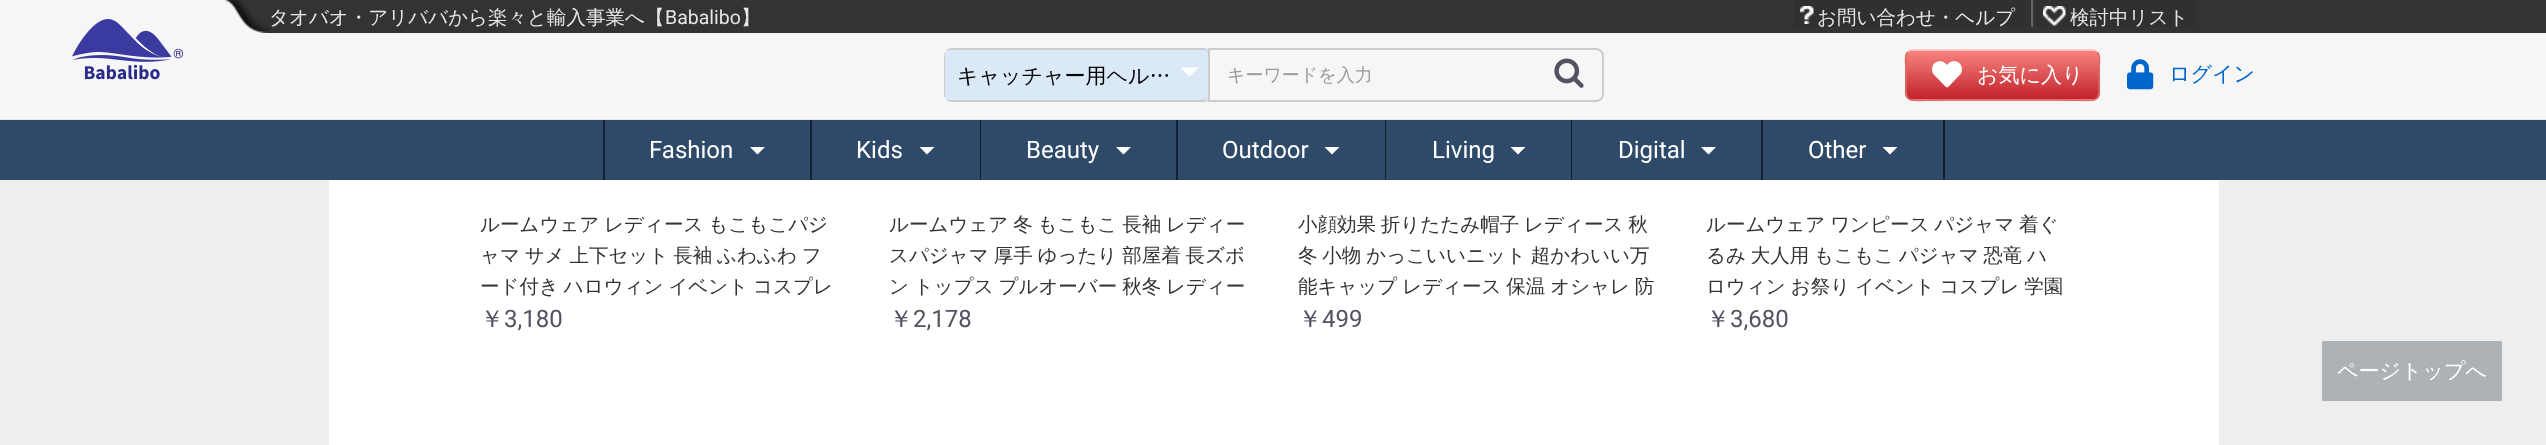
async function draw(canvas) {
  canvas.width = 2546;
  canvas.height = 445;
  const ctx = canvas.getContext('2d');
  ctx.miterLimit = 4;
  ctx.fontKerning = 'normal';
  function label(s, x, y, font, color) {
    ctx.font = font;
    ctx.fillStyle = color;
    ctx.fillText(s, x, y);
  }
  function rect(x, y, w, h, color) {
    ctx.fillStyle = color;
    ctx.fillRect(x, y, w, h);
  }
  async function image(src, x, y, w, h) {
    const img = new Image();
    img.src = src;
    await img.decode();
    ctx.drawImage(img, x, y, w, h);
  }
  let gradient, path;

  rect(0, 0, 2546, 445, '#eee');
  rect(0, 0, 2546, 119, '#f6f6f6');
  rect(0, 119, 2546, 1, '#e6e6e6');
  rect(268, 0, 2278, 33, '#333');
  await image('assets/img1.png', 225, 0, 44, 33);
  label('タオバオ・アリババから楽々と輸入事業へ【', 269, 24, '500 19.5px WenQuanYi Zen Hei', '#e6e6e6');
  label('Babalibo', 665, 24, '19.5px Roboto', '#e6e6e6');
  label('】', 741, 24, '500 19.5px WenQuanYi Zen Hei', '#e6e6e6');
  rect(1794, 0, 237, 27, '#303030');
  await image('assets/img2.png', 1800, 6, 14, 18);
  rect(2031, 0, 2, 27, '#666');
  label('お問い合わせ・ヘルプ', 1817, 24, '500 19.5px WenQuanYi Zen Hei', '#e6e6e6');
  rect(2037, 0, 159, 27, '#303030');
  await image('assets/img3.png', 2043, 6, 23, 20);
  label('検討中リスト', 2070, 24, '500 19.5px WenQuanYi Zen Hei', '#e6e6e6');
  await image('assets/img4.png', 72, 19, 112, 61);
  ctx.fillStyle = '#dbe8f7';
  ctx.beginPath();
  ctx.roundRect(944, 48, 264, 54, [8, 0, 0, 8]);
  ctx.fill();
  ctx.fillStyle = '#ccc';
  path = new Path2D('M944 56V94C944 95 944 97 945 98V52ZM948 50H1203C1205 50 1208 51 1208 52C1208 50 1205 48 1203 48H952C950 48 948 49 946 50ZM1208 98C1208 100 1204 100 1203 100H946C948 101 950 102 952 102H1203C1205 102 1208 100 1208 98Z');
  ctx.fill(path, 'evenodd');
  label('キャッチャー用ヘル…', 957, 83, '500 21px WenQuanYi Zen Hei', '#000');
  ctx.fillStyle = '#fff';
  path = new Path2D('M1180.5 67.5H1198.5L1189.5 76.5Z');
  ctx.fill(path);
  ctx.beginPath();
  ctx.roundRect(1209, 49, 394, 52, [0, 7, 7, 0]);
  ctx.strokeStyle = '#ccc';
  ctx.lineWidth = 2;
  ctx.stroke();
  label('キーワードを入力', 1227, 81, '500 18px WenQuanYi Zen Hei', '#999');
  await image('assets/img5.png', 1554, 58, 30, 30);
  ctx.save();
  ctx.beginPath();
  ctx.roundRect(1905, 50, 195, 51, 8);
  ctx.clip();
  gradient = ctx.createLinearGradient(1907, 99, 1907, 51);
  gradient.addColorStop(0, '#c2222a');
  gradient.addColorStop(1, '#f7837f');
  ctx.fillStyle = gradient;
  ctx.fillRect(1905, 51, 195, 48);
  gradient = ctx.createLinearGradient(1907, 147, 1907, 99);
  gradient.addColorStop(0, '#c2222a');
  gradient.addColorStop(1, '#f7837f');
  ctx.fillStyle = gradient;
  ctx.fillRect(1905, 99, 195, 2);
  ctx.restore();
  path = new Path2D('M1907.5 52C1909 51 1910.5 50 1912.5 50H2092.5C2094.5 50 2096 51 2097.5 52');
  ctx.strokeStyle = '#ffb4ba';
  ctx.lineWidth = 1.5;
  ctx.stroke(path);
  path = new Path2D('M2097.5 52C2101 56 2099 65 2099 69C2099 106.5 2104 100 2062.5 100H1942.5C1901 100 1906 106.5 1906 69C1906 65 1904 56 1907.5 52');
  ctx.strokeStyle = '#de6c68';
  ctx.stroke(path);
  await image('assets/img6.png', 1932, 61, 30, 27);
  label('お気に入り', 1977, 82, '500 21px WenQuanYi Zen Hei', '#fff');
  await image('assets/img7.png', 2127, 59, 27, 31);
  label('ログイン', 2169, 81, '500 21px WenQuanYi Zen Hei', '#06c');
  rect(0, 120, 2546, 60, '#2e4a68');
  rect(603, 120, 2, 60, '#122131');
  label('Fashion', 649, 158, '24px Roboto', '#fff');
  path = new Path2D('M750 147H765L757.5 154.5Z');
  ctx.fill(path);
  rect(810, 120, 2, 60, '#122131');
  label('Kids', 856, 158, '24px Roboto', '#fff');
  path = new Path2D('M919.5 147H934.5L927 154.5Z');
  ctx.fill(path);
  rect(980, 120, 1, 60, '#122131');
  label('Beauty', 1026, 158, '24px Roboto', '#fff');
  path = new Path2D('M1116 147H1131L1123.5 154.5Z');
  ctx.fill(path);
  rect(1176, 120, 2, 60, '#122131');
  label('Outdoor', 1222, 158, '24px Roboto', '#fff');
  path = new Path2D('M1324.5 147H1339.5L1332 154.5Z');
  ctx.fill(path);
  rect(1385, 120, 1, 60, '#122131');
  label('Living', 1432, 158, '24px Roboto', '#fff');
  path = new Path2D('M1510.5 147H1525.5L1518 154.5Z');
  ctx.fill(path);
  rect(1571, 120, 1, 60, '#122131');
  label('Digital', 1618, 158, '24px Roboto', '#fff');
  path = new Path2D('M1701 147H1716L1708.5 154.5Z');
  ctx.fill(path);
  rect(1943, 120, 2, 60, '#122131');
  rect(1761, 120, 2, 60, '#122131');
  label('Other', 1808, 158, '24px Roboto', '#fff');
  path = new Path2D('M1882.5 147H1897.5L1890 154.5Z');
  ctx.fill(path);
  rect(329, 180, 1890, 265, '#fff');
  ctx.wordSpacing = '-1px';
  label('ルームウェア レディース もこもこパジ', 480, 231, '500 19.5px WenQuanYi Zen Hei', '#333');
  label('ャマ サメ 上下セット 長袖 ふわふわ フ', 480, 262, '500 19.5px WenQuanYi Zen Hei', '#333');
  label('ード付き ハロウィン イベント コスプレ', 480, 293, '500 19.5px WenQuanYi Zen Hei', '#333');
  ctx.wordSpacing = '0px';
  label('￥', 480, 327, '500 24px WenQuanYi Zen Hei', '#525263');
  label('3,180', 504, 327, '24px Roboto', '#525263');
  ctx.wordSpacing = '-1px';
  label('ルームウェア 冬 もこもこ 長袖 レディー', 889, 231, '500 19.5px WenQuanYi Zen Hei', '#333');
  label('スパジャマ 厚手 ゆったり 部屋着 長ズボ', 889, 262, '500 19.5px WenQuanYi Zen Hei', '#333');
  label('ン トップス プルオーバー 秋冬 レディー', 889, 293, '500 19.5px WenQuanYi Zen Hei', '#333');
  ctx.wordSpacing = '0px';
  label('￥', 889, 327, '500 24px WenQuanYi Zen Hei', '#525263');
  label('2,178', 913, 327, '24px Roboto', '#525263');
  ctx.wordSpacing = '-1px';
  label('小顔効果 折りたたみ帽子 レディース 秋', 1298, 231, '500 19.5px WenQuanYi Zen Hei', '#333');
  label('冬 小物 かっこいいニット 超かわいい万', 1298, 262, '500 19.5px WenQuanYi Zen Hei', '#333');
  label('能キャップ レディース 保温 オシャレ 防', 1298, 293, '500 19.5px WenQuanYi Zen Hei', '#333');
  ctx.wordSpacing = '0px';
  label('￥', 1298, 327, '500 24px WenQuanYi Zen Hei', '#525263');
  label('499', 1322, 327, '24px Roboto', '#525263');
  ctx.wordSpacing = '-1px';
  label('ルームウェア ワンピース パジャマ 着ぐ', 1706, 231, '500 19.5px WenQuanYi Zen Hei', '#333');
  label('るみ 大人用 もこもこ パジャマ 恐竜 ハ', 1706, 262, '500 19.5px WenQuanYi Zen Hei', '#333');
  label('ロウィン お祭り イベント コスプレ 学園', 1706, 293, '500 19.5px WenQuanYi Zen Hei', '#333');
  ctx.wordSpacing = '0px';
  label('￥', 1706, 327, '500 24px WenQuanYi Zen Hei', '#525263');
  label('3,680', 1730, 327, '24px Roboto', '#525263');
  rect(2322, 341, 180, 60, '#adb2b7');
  label('ページトップへ', 2337, 378, '500 21px WenQuanYi Zen Hei', '#fff');
}

draw(document.querySelector('canvas'));
